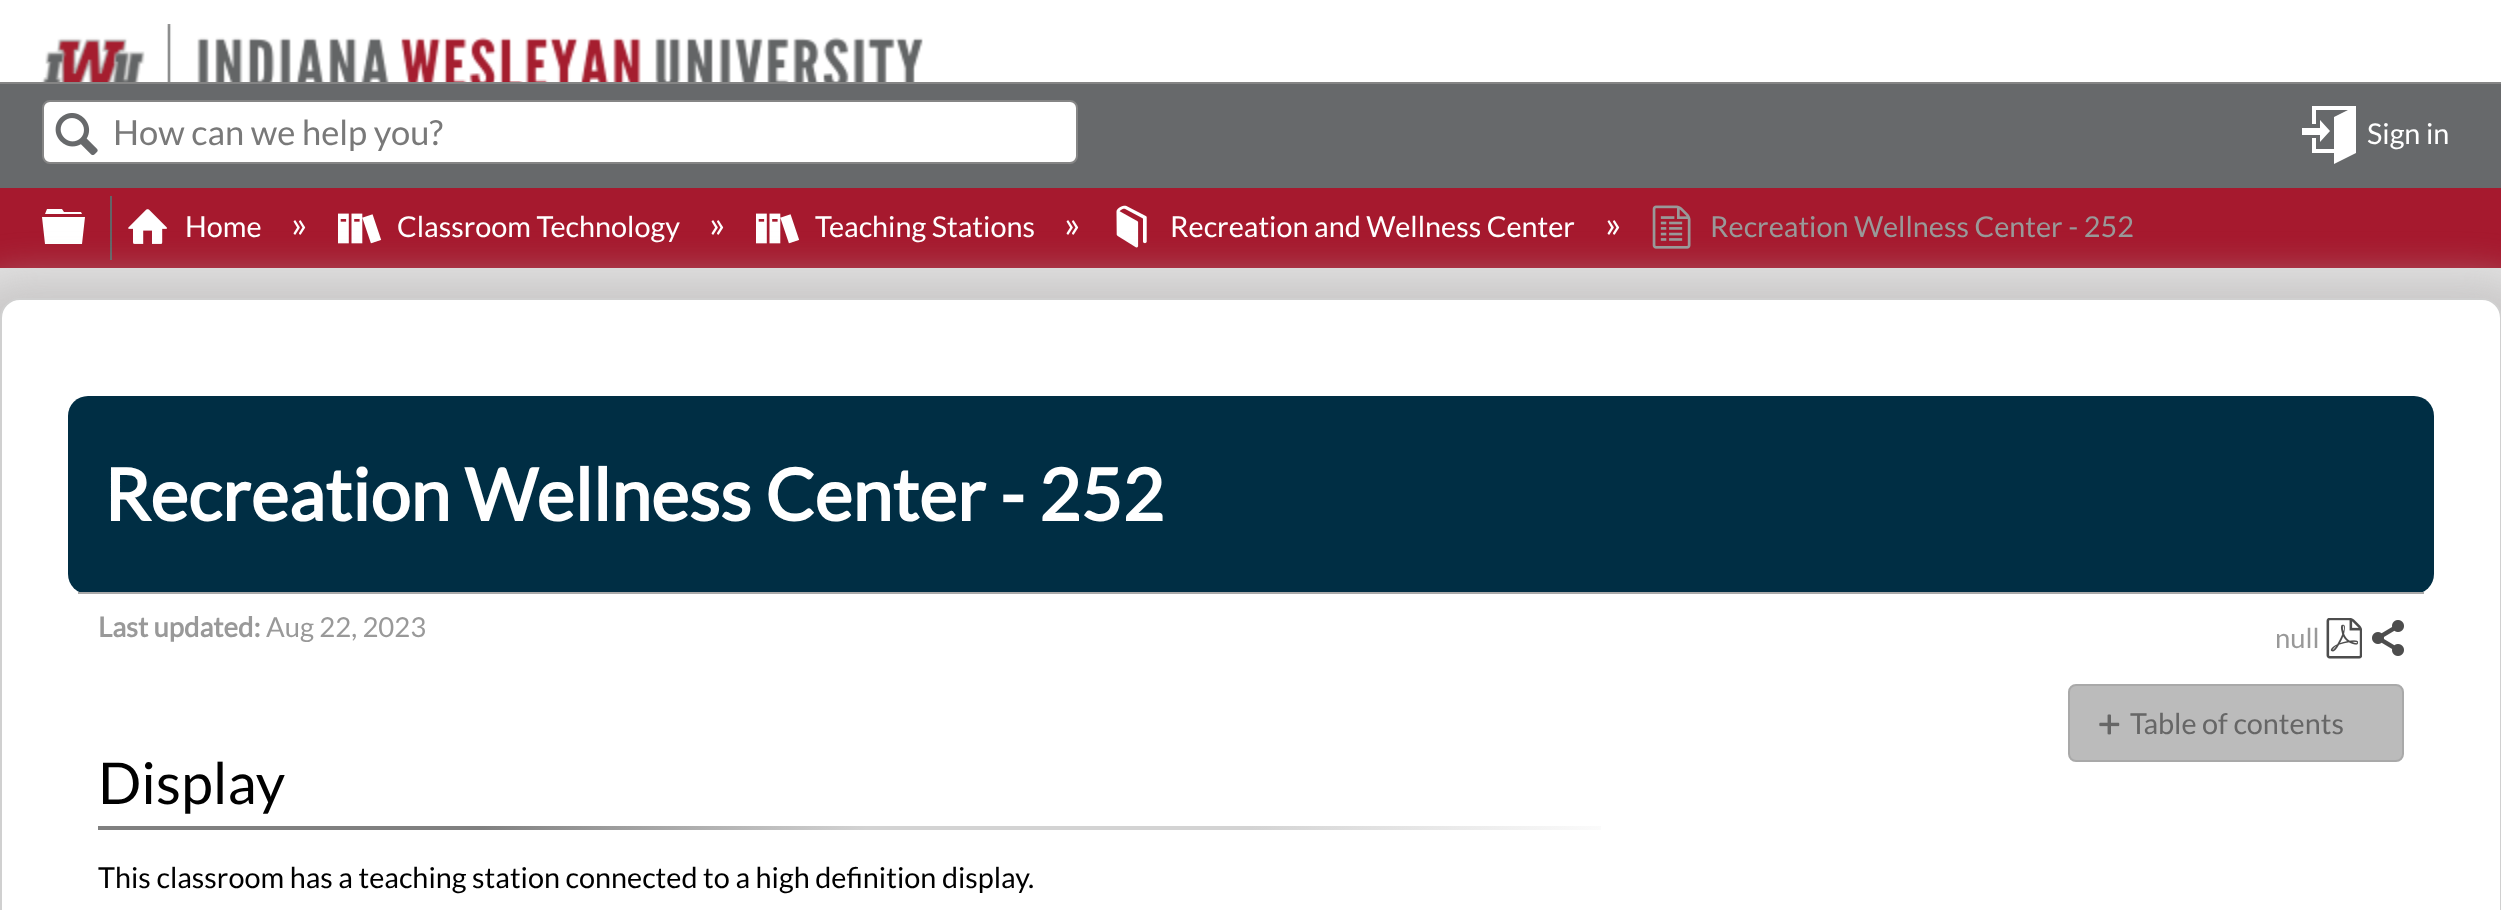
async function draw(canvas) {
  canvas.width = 2501;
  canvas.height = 910;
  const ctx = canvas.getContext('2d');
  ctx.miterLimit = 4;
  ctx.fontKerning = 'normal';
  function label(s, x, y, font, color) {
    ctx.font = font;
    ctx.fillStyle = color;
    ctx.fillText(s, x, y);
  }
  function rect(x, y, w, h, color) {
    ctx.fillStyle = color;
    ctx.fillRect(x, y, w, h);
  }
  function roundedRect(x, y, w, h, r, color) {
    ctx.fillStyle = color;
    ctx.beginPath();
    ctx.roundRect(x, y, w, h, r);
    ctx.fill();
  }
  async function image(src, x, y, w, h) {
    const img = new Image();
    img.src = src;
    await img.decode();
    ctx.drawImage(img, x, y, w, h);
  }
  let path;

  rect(0, 0, 2501, 910, '#e3e3e3');
  rect(0, 0, 2501, 82, '#fff');
  await image('assets/img1.png', 41, 24, 882, 58);
  rect(0, 84, 2501, 104, '#67696b');
  rect(0, 82, 2501, 2, '#858585');
  ctx.fillStyle = '#fff';
  ctx.beginPath();
  ctx.roundRect(43, 101, 1034, 62, 7);
  ctx.fill();
  ctx.strokeStyle = '#858585';
  ctx.lineWidth = 2;
  ctx.stroke();
  await image('assets/img2.png', 55, 113, 43, 43);
  label('How can we help you?', 113, 145, '34.5px Lato', '#797979');
  ctx.fillStyle = '#fff';
  path = new Path2D('M2320 135H2302V128H2320V120L2330 131L2320 142ZM2356 106V153L2334 164V153H2312V138H2316V149H2334V117L2348 110H2316V124H2312V106Z');
  ctx.fill(path);
  label('Sign in', 2367, 144, '28.8px Lato', '#fff');
  rect(0, 188, 2501, 80, '#a6192e');
  ctx.fillStyle = '#fff';
  path = new Path2D('M42 217H85L82 244H45ZM81 212L82 214H45L47 209H62L64 212Z');
  ctx.fill(path);
  rect(110, 196, 2, 64, '#626466');
  await image('assets/img3.png', 128, 209, 39, 35);
  label('Home', 185, 237, '28.8px Lato', '#fff');
  label('»', 291, 237, '36px Lato', '#fff');
  await image('assets/img4.png', 338, 213, 44, 31);
  label('Classroom Technology', 397, 237, '28.8px Lato', '#fff');
  label('»', 709, 237, '36px Lato', '#fff');
  await image('assets/img4.png', 756, 213, 44, 31);
  label('Teaching Stations', 815, 237, '28.8px Lato', '#fff');
  label('»', 1064, 237, '36px Lato', '#fff');
  await image('assets/img5.png', 1116, 205, 31, 43);
  label('Recreation and Wellness Center', 1170, 237, '28.8px Lato', '#fff');
  label('»', 1605, 237, '36px Lato', '#fff');
  await image('assets/img6.png', 1652, 205, 39, 44);
  label('Recreation Wellness Center - 252', 1710, 237, '28.8px Lato', '#999');
  ctx.fillStyle = '#b7b3b391';
  ctx.filter = 'blur(20px)';
  ctx.beginPath();
  ctx.roundRect(-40, 278, 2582, 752, 60);
  ctx.fill();
  ctx.filter = 'none';
  ctx.fillStyle = '#fff';
  ctx.beginPath();
  ctx.roundRect(1, 299, 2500, 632, 19);
  ctx.fill();
  ctx.strokeStyle = '#d0d0d0';
  ctx.stroke();
  roundedRect(68, 396, 2366, 198, 20, '#002e44');
  rect(78, 592, 2346, 2, '#a9a9a9');
  label('Recreation Wellness Center - 252', 104, 521, 'bold 72px Lato', '#fff');
  label('Last updated:', 98, 637, 'bold 27.5px Lato', '#999');
  label('Aug 22, 2023', 266, 637, '27.5px Lato', '#999');
  label('null', 2275, 648, '27.5px Lato', '#999');
  await image('assets/img7.png', 2326, 618, 36, 41);
  await image('assets/img8.png', 2372, 620, 32, 36);
  ctx.fillStyle = '#bbb';
  ctx.beginPath();
  ctx.roundRect(2069, 685, 334, 76, 7);
  ctx.fill();
  ctx.strokeStyle = '#a9a9a9';
  ctx.stroke();
  await image('assets/img9.png', 2099, 714, 21, 21);
  label('Table of contents', 2130, 734, '28.8px Lato', '#666');
  await image('assets/img10.png', 98, 826, 1503, 4);
  label('Display', 98, 804, '57.5px Lato', '#000');
  label('This classroom has a teaching station connected to a high definition display.', 98, 888, '28.8px Lato', '#000');
}

draw(document.querySelector('canvas'));
